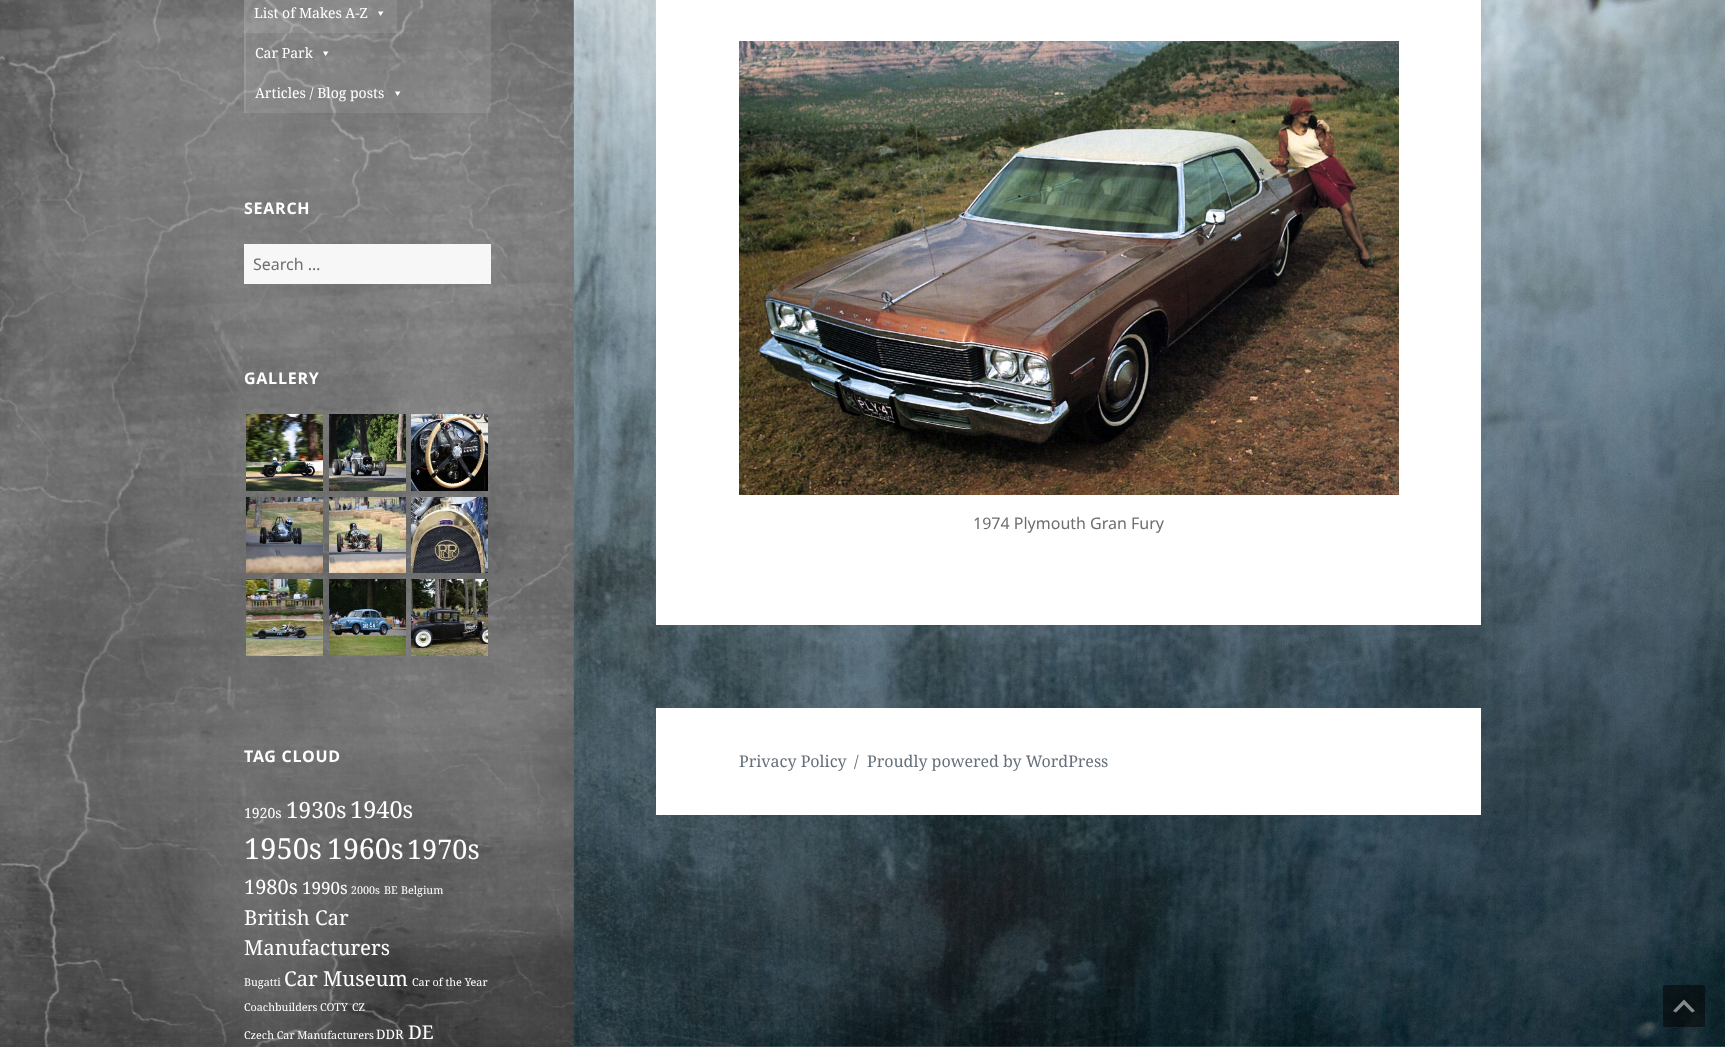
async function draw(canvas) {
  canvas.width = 1725;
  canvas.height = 1047;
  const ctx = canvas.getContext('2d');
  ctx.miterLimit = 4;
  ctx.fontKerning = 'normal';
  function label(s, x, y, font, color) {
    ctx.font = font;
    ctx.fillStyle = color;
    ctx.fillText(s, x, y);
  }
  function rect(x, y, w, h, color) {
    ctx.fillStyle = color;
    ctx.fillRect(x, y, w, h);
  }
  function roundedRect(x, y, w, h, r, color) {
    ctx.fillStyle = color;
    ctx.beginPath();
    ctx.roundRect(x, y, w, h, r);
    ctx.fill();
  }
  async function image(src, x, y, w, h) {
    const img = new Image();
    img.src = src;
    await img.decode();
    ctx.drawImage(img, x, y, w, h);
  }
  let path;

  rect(0, 0, 1725, 1047, '#fff');
  await image('assets/img1.png', 573, 0, 1152, 1047);
  await image('assets/img2.png', 0, 0, 574, 1047);
  rect(244, 0, 247, 113, '#ffffff1a');
  rect(244, 0, 153, 33, '#ffffff1a');
  label('List of Makes A-Z', 254, 18, '14px Noto Serif', '#fff');
  path = new Path2D('M383.5 11.5L380.5 16L378 11.5Z');
  ctx.fill(path);
  rect(245, 33, 1, 40, '#ffffff1a');
  rect(244, 33, 1, 40, '#ffffff1a');
  label('Car Park', 255, 58, '14px Noto Serif', '#fff');
  path = new Path2D('M328.5 51.5L325.5 56L323 51.5Z');
  ctx.fill(path);
  rect(245, 73, 1, 40, '#ffffff1a');
  rect(244, 73, 1, 40, '#ffffff1a');
  label('Articles / Blog posts', 255, 98, '14px Noto Serif', '#fff');
  path = new Path2D('M400.5 91.5L397.5 96L395 91.5Z');
  ctx.fill(path);
  ctx.letterSpacing = '0.75px';
  label('SEARCH', 244, 214, 'bold 16px Noto Sans', '#fff');
  rect(244, 244, 247, 40, '#f7f7f7');
  ctx.letterSpacing = '0px';
  label('Search …', 253, 270, '16px Noto Sans', '#6e6e6e');
  ctx.letterSpacing = '0.75px';
  label('GALLERY', 244, 384, 'bold 16px Noto Sans', '#fff');
  await image('assets/img3.png', 246, 414, 77, 77);
  await image('assets/img4.png', 329, 414, 77, 77);
  await image('assets/img5.png', 411, 414, 77, 77);
  await image('assets/img6.png', 246, 497, 77, 76);
  await image('assets/img7.png', 329, 497, 77, 76);
  await image('assets/img8.png', 411, 497, 77, 76);
  await image('assets/img9.png', 246, 579, 77, 77);
  await image('assets/img10.png', 329, 579, 77, 77);
  await image('assets/img11.png', 411, 579, 77, 77);
  label('TAG CLOUD', 244, 762, 'bold 16px Noto Sans', '#fff');
  ctx.letterSpacing = '0px';
  label('1920s', 244, 818, '14px Noto Serif', '#fff');
  label('1930s', 286, 818, '22.5px Noto Serif', '#fff');
  label('1940s', 350, 818, '23.5px Noto Serif', '#fff');
  label('1950s', 244, 859, '29px Noto Serif', '#fff');
  label('1960s', 327, 859, '28.5px Noto Serif', '#fff');
  label('1970s', 407, 859, '27px Noto Serif', '#fff');
  label('1980s', 244, 894, '20px Noto Serif', '#fff');
  label('1990s', 302, 894, '17px Noto Serif', '#fff');
  label('2000s', 351, 894, '10.75px Noto Serif', '#fff');
  label('BE', 384, 894, '10.75px Noto Serif', '#fff');
  label('Belgium', 401, 894, '10.75px Noto Serif', '#fff');
  label('British Car', 244, 925, '20.5px Noto Serif', '#fff');
  label('Manufacturers', 244, 955, '20.5px Noto Serif', '#fff');
  label('Bugatti', 244, 986, '10.75px Noto Serif', '#fff');
  label('Car Museum', 284, 986, '20.5px Noto Serif', '#fff');
  label('Car of the Year', 412, 986, '10.75px Noto Serif', '#fff');
  label('Coachbuilders', 244, 1011, '10.75px Noto Serif', '#fff');
  label('COTY', 320, 1011, '10.75px Noto Serif', '#fff');
  label('CZ', 352, 1011, '10.75px Noto Serif', '#fff');
  label('Czech Car Manufacturers', 244, 1039, '10.75px Noto Serif', '#fff');
  label('DDR', 376, 1039, '13px Noto Serif', '#fff');
  label('DE', 408, 1039, '19px Noto Serif', '#fff');
  rect(656, 0, 825, 625, '#fff');
  await image('assets/img12.png', 739, 41, 660, 454);
  label('1974 Plymouth Gran Fury', 973, 529, '16px Noto Sans', '#6e6e6e');
  rect(656, 708, 825, 107, '#fff');
  label('Privacy Policy', 739, 767, '16px Noto Serif', '#646f79');
  label('/', 854, 767, '16px Noto Serif', '#646f79');
  label('Proudly powered by WordPress', 867, 767, '16px Noto Serif', '#646f79');
  roundedRect(1663, 985, 42, 42, 2, '#00000080');
  ctx.fillStyle = '#ffffff80';
  path = new Path2D('M1692 1012.5L1684 1004.5L1676 1012.5L1673 1011L1684 999.5L1695 1011Z');
  ctx.fill(path);
}

draw(document.querySelector('canvas'));
